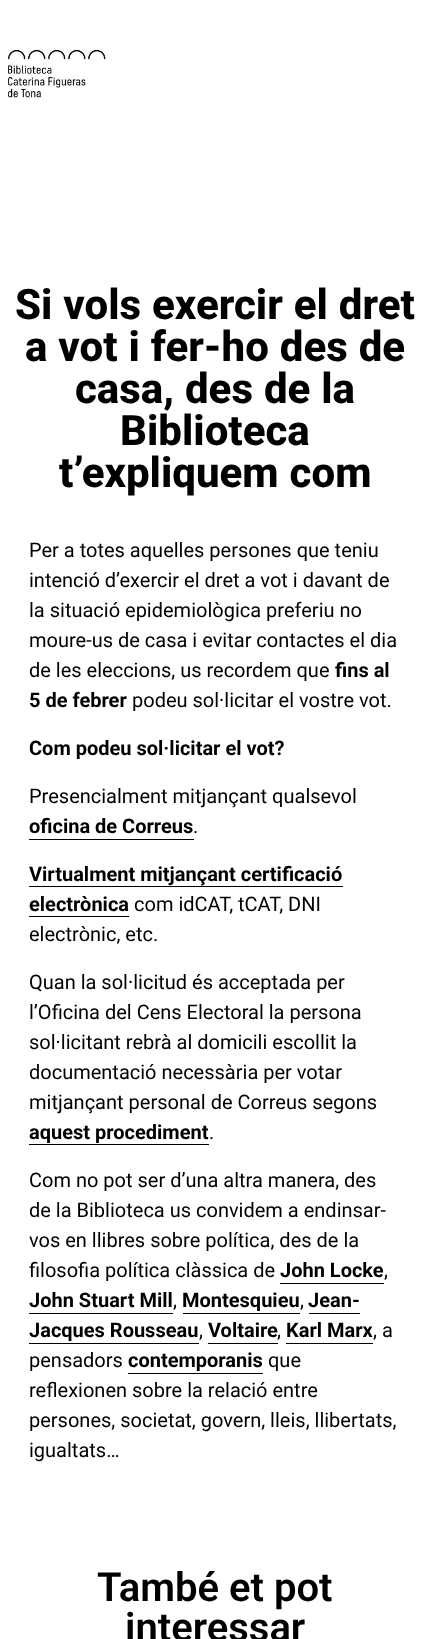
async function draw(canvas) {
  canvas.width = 429;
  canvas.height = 1639;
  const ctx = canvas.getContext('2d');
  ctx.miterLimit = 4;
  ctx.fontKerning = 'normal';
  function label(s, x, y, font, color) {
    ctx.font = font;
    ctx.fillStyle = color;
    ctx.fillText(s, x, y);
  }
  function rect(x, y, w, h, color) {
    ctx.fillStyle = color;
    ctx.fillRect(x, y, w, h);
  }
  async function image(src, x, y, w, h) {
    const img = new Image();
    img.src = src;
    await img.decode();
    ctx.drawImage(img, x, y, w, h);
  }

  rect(0, 0, 429, 1639, '#fff');
  await image('assets/img1.png', 7, 49, 99, 49);
  ctx.wordSpacing = '0.5px';
  label('Si vols exercir el dret', 15, 319, '800 42px Roboto', '#000');
  label('a vot i fer-ho des de', 25, 361, '800 42px Roboto', '#000');
  label('casa, des de la', 75, 403, '800 42px Roboto', '#000');
  ctx.wordSpacing = '0px';
  label('Biblioteca', 120, 445, '800 42px Roboto', '#000');
  ctx.wordSpacing = '0.5px';
  label('t’expliquem com', 59, 487, '800 42px Roboto', '#000');
  ctx.wordSpacing = '0px';
  label('Per a totes aquelles persones que teniu', 29, 557, '20px Roboto', '#000');
  label('intenció d’exercir el dret a vot i davant de', 29, 587, '20px Roboto', '#000');
  label('la situació epidemiològica preferiu no', 29, 617, '20px Roboto', '#000');
  label('moure-us de casa i evitar contactes el dia', 29, 647, '20px Roboto', '#000');
  label('de les eleccions, us recordem que', 29, 677, '20px Roboto', '#000');
  label('fins al', 335, 677, 'bold 20px Roboto', '#000');
  label('5 de febrer', 29, 707, 'bold 20px Roboto', '#000');
  label('podeu sol·licitar el vostre vot.', 132, 707, '20px Roboto', '#000');
  label('Com podeu sol·licitar el vot?', 29, 755, 'bold 20px Roboto', '#000');
  label('Presencialment mitjançant qualsevol', 29, 803, '20px Roboto', '#000');
  label('oficina de Correus', 29, 833, 'bold 20px Roboto', '#000');
  rect(29, 839, 165, 1, '#000');
  label('.', 193, 833, '20px Roboto', '#000');
  label('Virtualment mitjançant certificació', 29, 881, 'bold 20px Roboto', '#000');
  rect(29, 886, 314, 1, '#000');
  label('electrònica', 29, 911, 'bold 20px Roboto', '#000');
  rect(29, 916, 100, 1, '#000');
  label('com idCAT, tCAT, DNI', 134, 911, '20px Roboto', '#000');
  label('electrònic, etc.', 29, 941, '20px Roboto', '#000');
  label('Quan la sol·licitud és acceptada per', 29, 989, '20px Roboto', '#000');
  label('l’Oficina del Cens Electoral la persona', 29, 1019, '20px Roboto', '#000');
  label('sol·licitant rebrà al domicili escollit la', 29, 1049, '20px Roboto', '#000');
  label('documentació necessària per votar', 29, 1079, '20px Roboto', '#000');
  label('mitjançant personal de Correus segons', 29, 1109, '20px Roboto', '#000');
  label('aquest procediment', 29, 1139, 'bold 20px Roboto', '#000');
  rect(29, 1144, 180, 1, '#000');
  label('.', 209, 1139, '20px Roboto', '#000');
  label('Com no pot ser d’una altra manera, des', 29, 1187, '20px Roboto', '#000');
  label('de la Biblioteca us convidem a endinsar-', 29, 1217, '20px Roboto', '#000');
  label('vos en llibres sobre política, des de la', 29, 1247, '20px Roboto', '#000');
  label('filosofia política clàssica de', 29, 1277, '20px Roboto', '#000');
  label('John Locke', 280, 1277, 'bold 20px Roboto', '#000');
  rect(280, 1283, 104, 1, '#000');
  label(',', 384, 1277, '20px Roboto', '#000');
  label('John Stuart Mill', 29, 1307, 'bold 20px Roboto', '#000');
  rect(29, 1313, 144, 1, '#000');
  label(',', 173, 1307, '20px Roboto', '#000');
  label('Montesquieu', 182, 1307, 'bold 20px Roboto', '#000');
  rect(183, 1313, 117, 1, '#000');
  label(',', 300, 1307, '20px Roboto', '#000');
  label('Jean-', 308, 1307, 'bold 20px Roboto', '#000');
  rect(309, 1313, 51, 1, '#000');
  label('Jacques Rousseau', 29, 1337, 'bold 20px Roboto', '#000');
  rect(29, 1343, 170, 1, '#000');
  label(',', 199, 1337, '20px Roboto', '#000');
  label('Voltaire', 208, 1337, 'bold 20px Roboto', '#000');
  rect(208, 1343, 70, 1, '#000');
  label(',', 277, 1337, '20px Roboto', '#000');
  label('Karl Marx', 286, 1337, 'bold 20px Roboto', '#000');
  rect(286, 1343, 87, 1, '#000');
  label(', a', 373, 1337, '20px Roboto', '#000');
  label('pensadors', 29, 1367, '20px Roboto', '#000');
  label('contemporanis', 128, 1367, 'bold 20px Roboto', '#000');
  rect(128, 1373, 135, 1, '#000');
  label('que', 268, 1367, '20px Roboto', '#000');
  label('reflexionen sobre la relació entre', 29, 1397, '20px Roboto', '#000');
  label('persones, societat, govern, lleis, llibertats,', 29, 1427, '20px Roboto', '#000');
  label('igualtats…', 29, 1457, '20px Roboto', '#000');
  label('També et pot', 97, 1601, '600 40px Roboto', '#000');
  label('interessar', 125, 1641, '600 40px Roboto', '#000');
}

draw(document.querySelector('canvas'));
